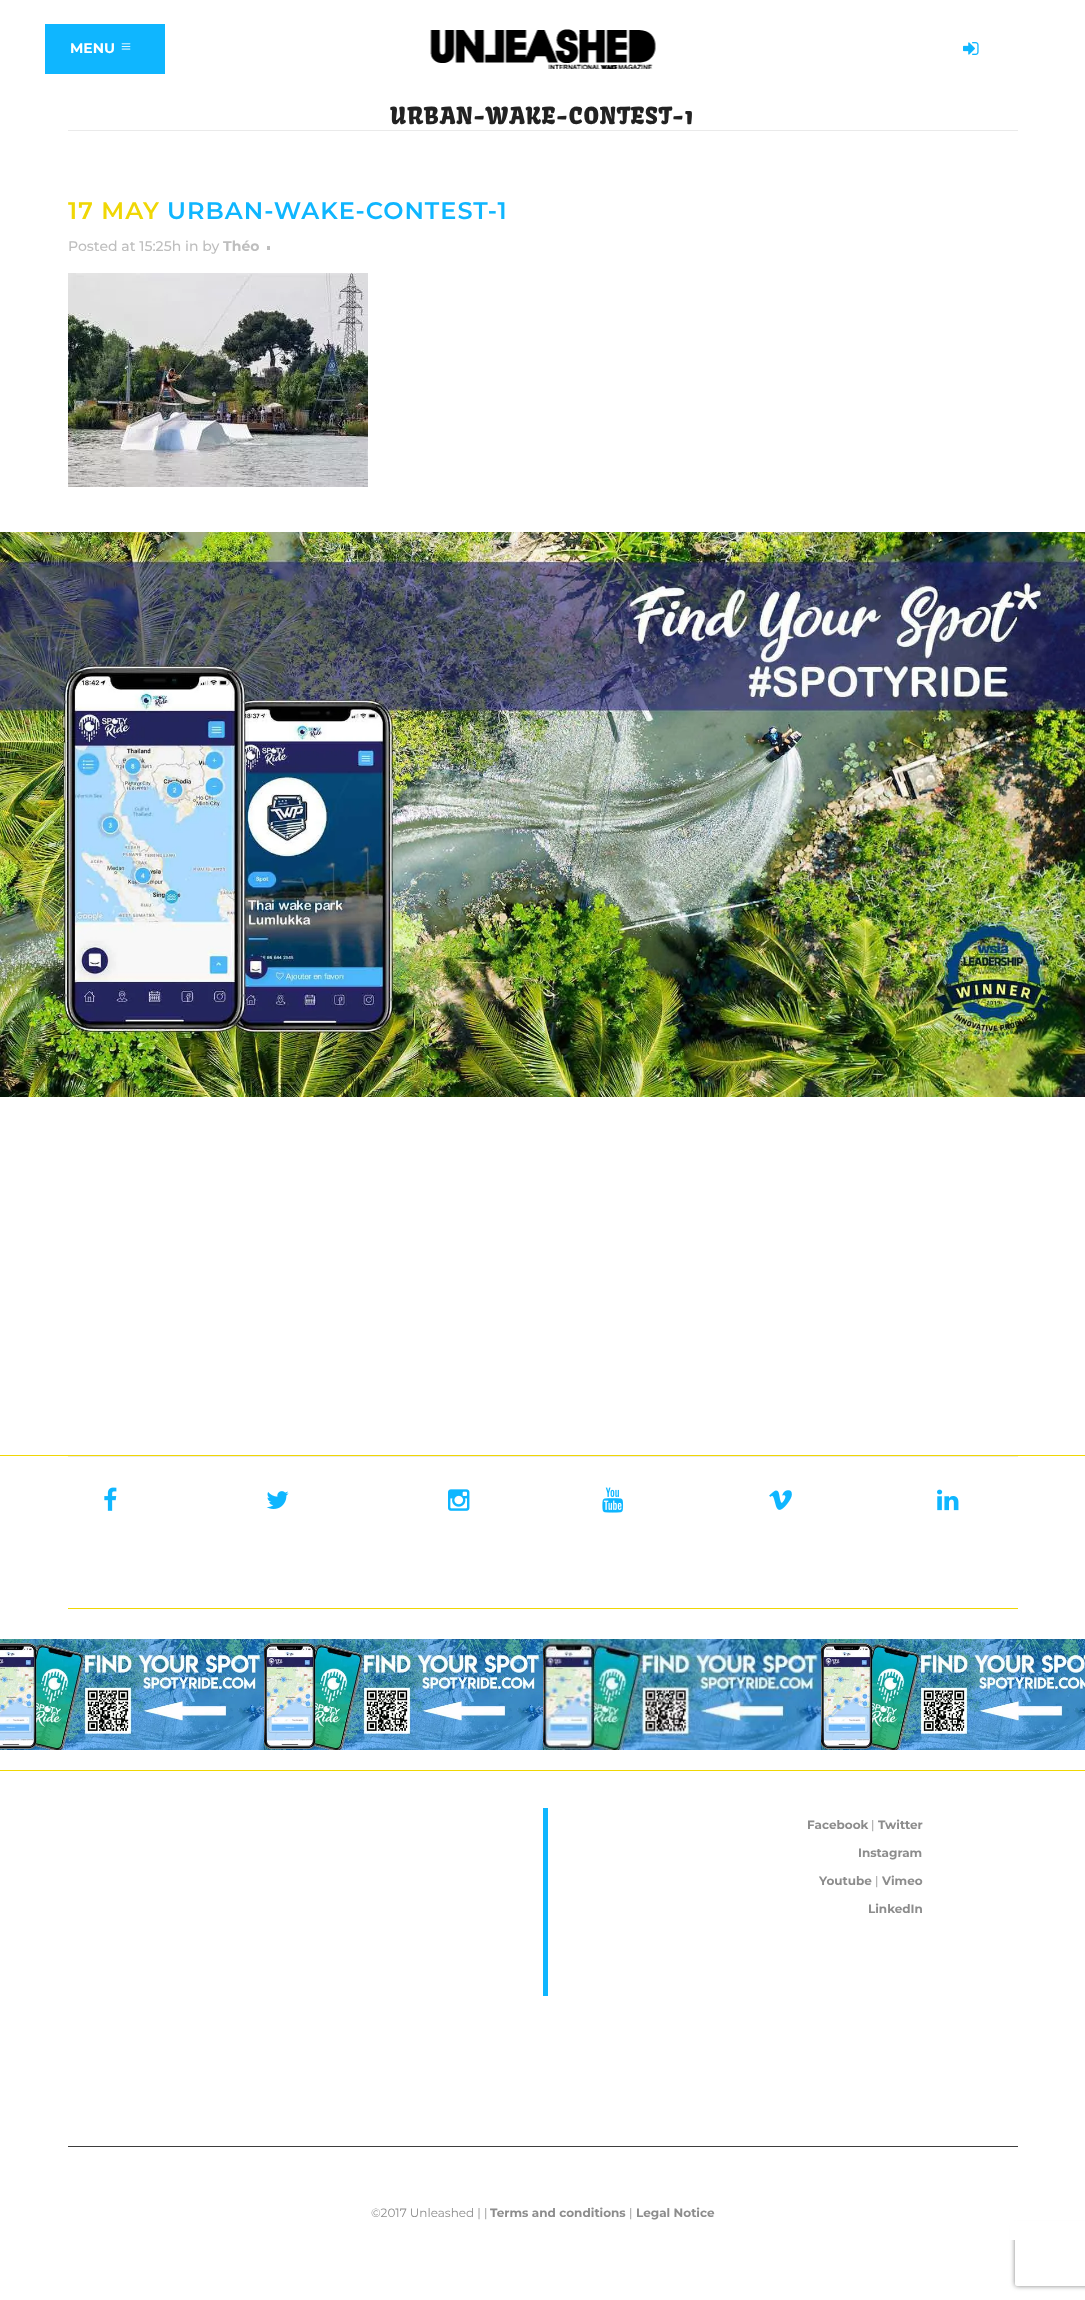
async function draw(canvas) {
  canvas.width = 1085;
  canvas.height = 2300;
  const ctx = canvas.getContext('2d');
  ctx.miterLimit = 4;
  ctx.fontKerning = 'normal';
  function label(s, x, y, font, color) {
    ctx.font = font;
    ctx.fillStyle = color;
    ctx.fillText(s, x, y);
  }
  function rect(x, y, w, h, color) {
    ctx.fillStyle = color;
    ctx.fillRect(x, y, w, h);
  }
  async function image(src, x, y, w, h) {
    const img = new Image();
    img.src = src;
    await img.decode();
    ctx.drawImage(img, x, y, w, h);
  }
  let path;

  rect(0, 0, 1085, 2300, '#fff');
  ctx.save();
  path = new Path2D('M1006 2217H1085V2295H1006ZM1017 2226H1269C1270 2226 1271 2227 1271 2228V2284C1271 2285 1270 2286 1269 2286H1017C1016 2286 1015 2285 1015 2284V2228C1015 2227 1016 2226 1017 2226Z');
  ctx.clip(path, 'evenodd');
  ctx.fillStyle = '#808080';
  ctx.filter = 'blur(2.5px)';
  ctx.beginPath();
  ctx.roundRect(1015, 2226, 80, 60, 2);
  ctx.fill();
  ctx.filter = 'none';
  ctx.restore();
  rect(1010, 2221, 75, 19, '#fff');
  rect(45, 24, 120, 50, '#0fb6ff');
  label('MENU', 70, 53, 'bold 14px Montserrat', '#fff');
  await image('assets/img1.png', 121, 43, 10, 7);
  await image('assets/img2.png', 430, 29, 226, 40);
  await image('assets/img3.png', 963, 42, 16, 13);
  ctx.letterSpacing = '1px';
  label('URBAN-WAKE-CONTEST-1', 390, 124, '23px Kavoon', '#222');
  rect(68, 130, 950, 1, '#eaeaea');
  label('17 MAY', 68, 219, '600 24px Montserrat', '#f0d705');
  label('URBAN-WAKE-CONTEST-1', 167, 219, '600 24px Montserrat', '#0fb6ff');
  ctx.letterSpacing = '0px';
  label('Posted at 15:25h in by', 68, 251, '500 14px Montserrat', '#bebebe');
  label('Théo', 223, 251, 'bold 14px Montserrat', '#bebebe');
  rect(267, 246, 3, 4, '#bebebe');
  await image('assets/img4.png', 68, 273, 300, 214);
  await image('assets/img5.png', 0, 532, 1085, 565);
  rect(0, 1455, 1085, 1, '#f0d705');
  rect(68, 1456, 950, 1, '#eaeaea');
  rect(68, 1608, 950, 1, '#f0d705');
  await image('assets/img6.png', 104, 1487, 13, 24);
  await image('assets/img7.png', 266, 1491, 23, 18);
  await image('assets/img8.png', 448, 1489, 22, 22);
  await image('assets/img9.png', 602, 1487, 22, 26);
  await image('assets/img10.png', 769, 1490, 23, 20);
  await image('assets/img11.png', 937, 1489, 22, 22);
  await image('assets/img12.png', 0, 1639, 264, 111);
  await image('assets/img13.png', 264, 1639, 279, 111);
  await image('assets/img14.png', 543, 1639, 278, 111);
  await image('assets/img15.png', 821, 1639, 264, 111);
  rect(0, 1770, 1085, 1, '#f0d705');
  rect(68, 2146, 950, 1, '#3d3d3d');
  rect(543, 1808, 5, 188, '#0fb6ff');
  label('Facebook', 807, 1829, 'bold 12px Montserrat', '#8d8d8d');
  label('|', 871, 1829, '12px Montserrat', '#8d8d8d');
  label('Twitter', 878, 1829, 'bold 12px Montserrat', '#8d8d8d');
  label('Instagram', 858, 1857, 'bold 12px Montserrat', '#8d8d8d');
  label('Youtube', 819, 1885, 'bold 12px Montserrat', '#8d8d8d');
  label('|', 875, 1885, '12px Montserrat', '#8d8d8d');
  label('Vimeo', 882, 1885, 'bold 12px Montserrat', '#8d8d8d');
  label('LinkedIn', 868, 1913, 'bold 12px Montserrat', '#8d8d8d');
  label('©2017 Unleashed | |', 371, 2217, '12px Montserrat', '#8d8d8d');
  label('Terms and conditions', 490, 2217, 'bold 12px Montserrat', '#8d8d8d');
  label('|', 629, 2217, '12px Montserrat', '#8d8d8d');
  label('Legal Notice', 636, 2217, 'bold 12px Montserrat', '#8d8d8d');
}

draw(document.querySelector('canvas'));
